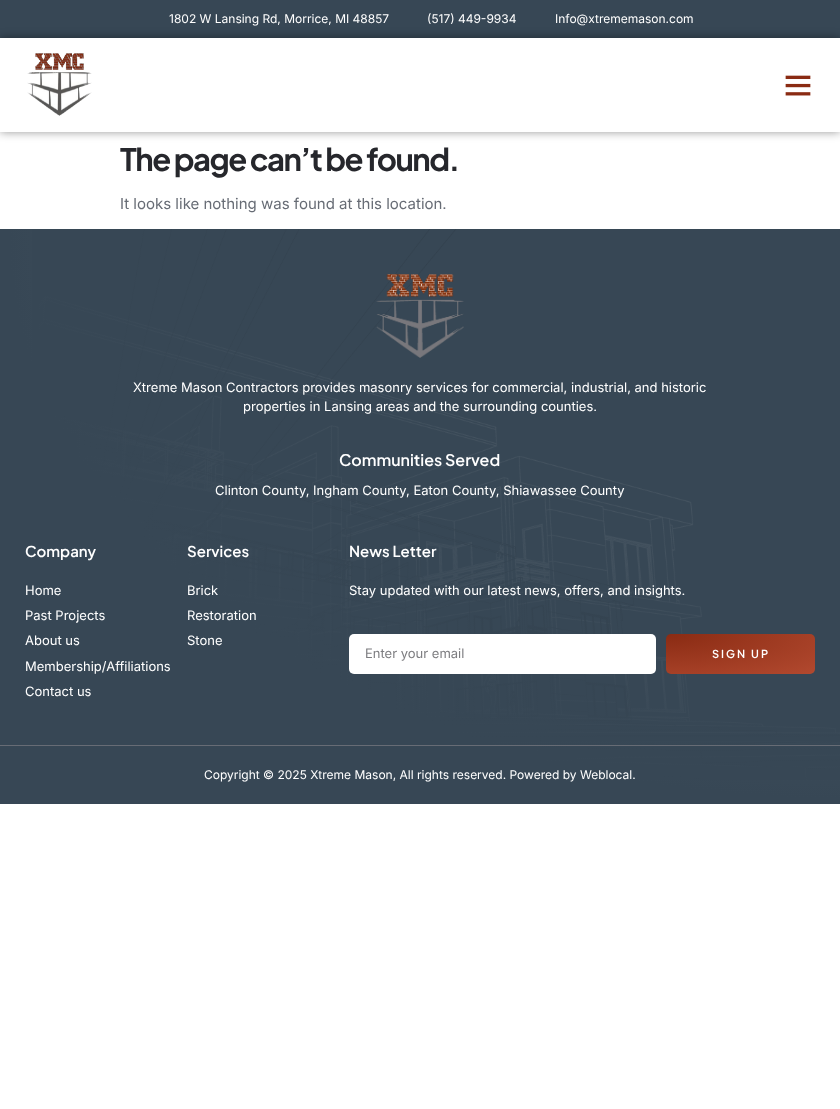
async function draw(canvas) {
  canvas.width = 840;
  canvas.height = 1109;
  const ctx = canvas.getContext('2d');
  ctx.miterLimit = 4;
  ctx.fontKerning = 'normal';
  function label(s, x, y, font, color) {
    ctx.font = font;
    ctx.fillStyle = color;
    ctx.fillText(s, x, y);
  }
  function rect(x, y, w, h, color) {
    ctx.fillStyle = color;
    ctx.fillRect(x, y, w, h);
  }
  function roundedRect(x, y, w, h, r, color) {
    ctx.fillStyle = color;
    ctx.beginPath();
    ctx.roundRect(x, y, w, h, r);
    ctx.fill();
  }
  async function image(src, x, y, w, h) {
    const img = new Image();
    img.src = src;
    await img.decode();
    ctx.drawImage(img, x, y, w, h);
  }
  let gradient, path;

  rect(0, 0, 840, 1109, '#fff');
  rect(0, 0, 840, 38, '#374755');
  label('1802 W Lansing Rd, Morrice, MI 48857', 169, 23, '12px Inter', '#fff');
  label('(517) 449-9934', 427, 23, '12px Inter', '#fff');
  label('Info@xtrememason.com', 555, 23, '12px Inter', '#fff');
  ctx.save();
  path = new Path2D('M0 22H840V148H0ZM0 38H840V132H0Z');
  ctx.clip(path, 'evenodd');
  ctx.fillStyle = '#00000069';
  ctx.filter = 'blur(5px)';
  ctx.beginPath();
  ctx.rect(0, 38, 840, 94);
  ctx.fill();
  ctx.filter = 'none';
  ctx.restore();
  await image('assets/img1.png', 27, 53, 65, 63);
  await image('assets/img2.png', 785, 75, 26, 21);
  ctx.letterSpacing = '-1.5px';
  label('The page can’t be found.', 120, 171, 'bold 31px Plus Jakarta Sans', '#26272c');
  ctx.letterSpacing = '0px';
  label('It looks like nothing was found at this location.', 120, 209, '15px Inter', '#676c75');
  rect(32, 229, 808, 551, '#374755');
  await image('assets/img3.png', 39, 229, 801, 551);
  gradient = ctx.createRadialGradient(840, 334.63, 0, 840, 334.63, 1188);
  gradient.addColorStop(0, '#374755cc');
  gradient.addColorStop(0.7, '#374755');
  ctx.fillStyle = gradient;
  ctx.beginPath();
  ctx.rect(0, 229, 840, 575);
  ctx.save();
  ctx.clip();
  ctx.scale(1, 813 / 1188);
  ctx.fillRect(0, 0, 840, 1621);
  ctx.restore();
  await image('assets/img4.png', 376, 274, 88, 84);
  label('Xtreme Mason Contractors provides masonry services for commercial, industrial, and historic', 133, 392, '13px Inter', '#fff');
  label('properties in Lansing areas and the surrounding counties.', 243, 411, '13px Inter', '#fff');
  label('Communities Served', 339, 466, '600 16px Plus Jakarta Sans', '#fff');
  label('Clinton County, Ingham County, Eaton County, Shiawassee County', 215, 495, '13px Inter', '#fff');
  label('Company', 25, 557, '600 15px Plus Jakarta Sans', '#fff');
  label('Home', 25, 595, '13px Inter', '#fff');
  label('Past Projects', 25, 620, '13px Inter', '#fff');
  label('About us', 25, 645, '13px Inter', '#fff');
  label('Membership/Affiliations', 25, 671, '13px Inter', '#fff');
  label('Contact us', 25, 696, '13px Inter', '#fff');
  label('Services', 187, 557, '600 15px Plus Jakarta Sans', '#fff');
  label('Brick', 187, 595, '13px Inter', '#fff');
  label('Restoration', 187, 620, '13px Inter', '#fff');
  label('Stone', 187, 645, '13px Inter', '#fff');
  label('News Letter', 349, 557, '600 15px Plus Jakarta Sans', '#fff');
  label('Stay updated with our latest news, offers, and insights.', 349, 595, '13px Inter', '#fff');
  roundedRect(349, 634, 307, 40, 5, '#fff');
  label('Enter your email', 365, 658, '13px Inter', '#7d7d80');
  gradient = ctx.createRadialGradient(666, 2346.91, 0, 666, 2346.91, 211);
  gradient.addColorStop(0, '#8a2b13');
  gradient.addColorStop(1, '#b2492f');
  ctx.fillStyle = gradient;
  ctx.beginPath();
  ctx.roundRect(666, 634, 149, 40, 5);
  ctx.save();
  ctx.clip();
  ctx.scale(1, 57 / 211);
  ctx.fillRect(0, 0, 840, 4106);
  ctx.restore();
  ctx.letterSpacing = '2px';
  label('SIGN UP', 712, 658, '600 11px Plus Jakarta Sans', '#fff');
  rect(0, 745, 840, 1, '#676c75');
  ctx.letterSpacing = '0px';
  label('Copyright © 2025 Xtreme Mason, All rights reserved. Powered by Weblocal.', 204, 779, '12px Inter', '#fff');
}

draw(document.querySelector('canvas'));
